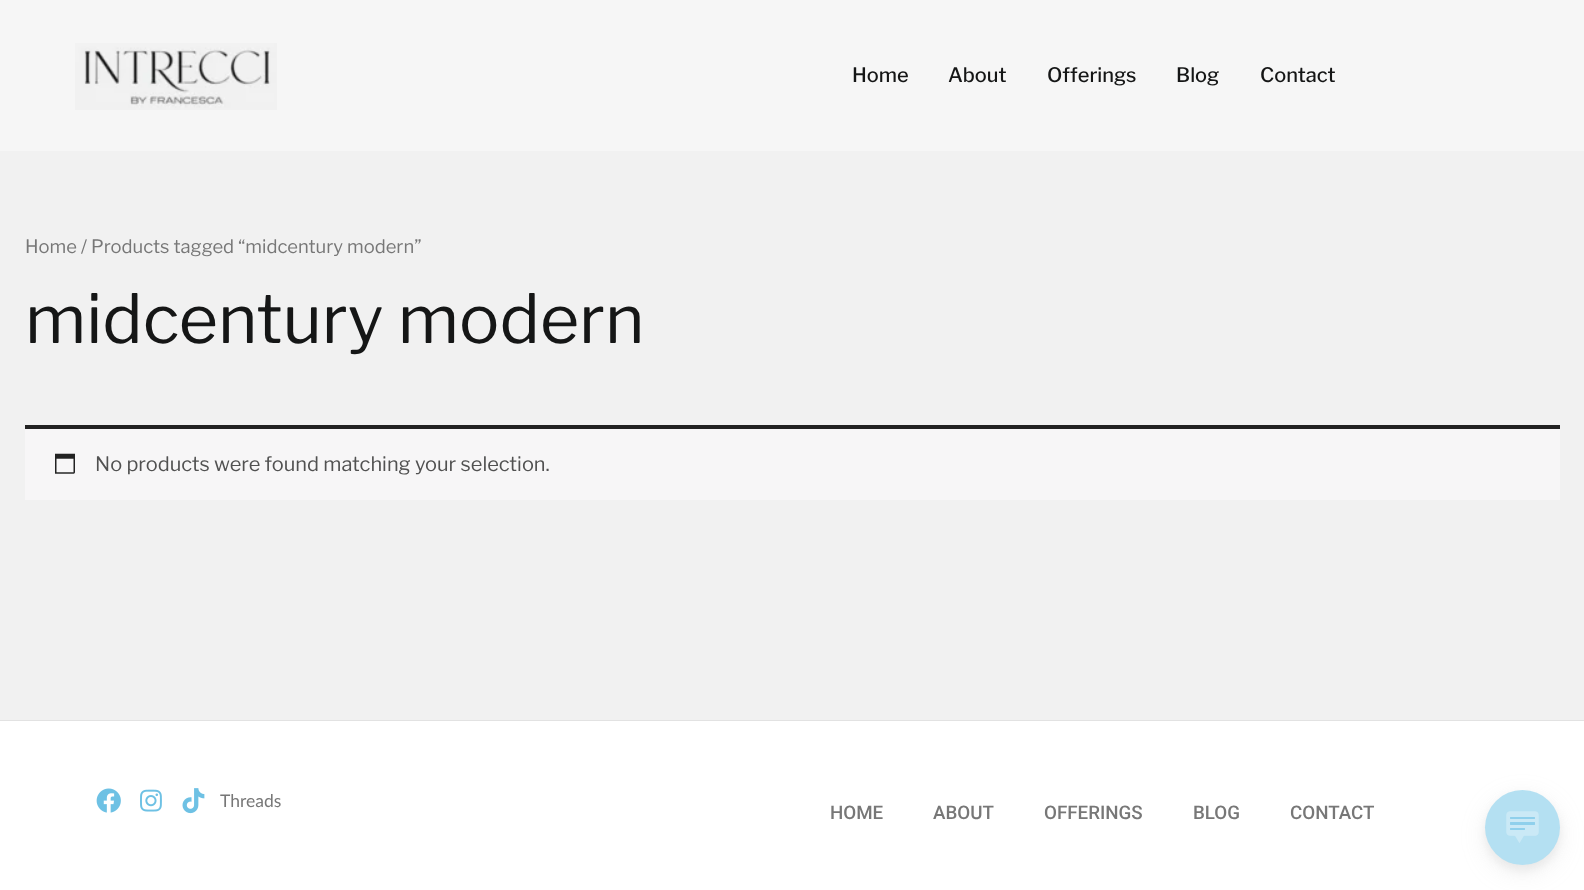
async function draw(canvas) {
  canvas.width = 1584;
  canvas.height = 890;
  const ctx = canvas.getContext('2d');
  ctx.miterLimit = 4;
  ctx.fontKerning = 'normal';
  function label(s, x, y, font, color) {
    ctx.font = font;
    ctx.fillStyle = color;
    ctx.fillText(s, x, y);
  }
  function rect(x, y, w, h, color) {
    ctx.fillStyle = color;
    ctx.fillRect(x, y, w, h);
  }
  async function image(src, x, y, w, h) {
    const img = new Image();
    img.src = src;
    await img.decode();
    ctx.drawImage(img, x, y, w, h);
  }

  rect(0, 0, 1584, 890, '#f1f1f1');
  rect(0, 0, 1584, 151, '#f6f6f6');
  await image('assets/img1.png', 75, 43, 202, 67);
  label('Home', 852, 82, '500 20px Libre Franklin', '#151616');
  label('About', 948, 82, '500 20px Libre Franklin', '#151616');
  label('Offerings', 1047, 82, '500 20px Libre Franklin', '#151616');
  label('Blog', 1176, 82, '500 20px Libre Franklin', '#151616');
  label('Contact', 1260, 82, '500 20px Libre Franklin', '#151616');
  label('Home / Products tagged “midcentury modern”', 25, 253, '18.4px Libre Franklin', '#777');
  label('midcentury modern', 25, 343, '67.5px Libre Franklin', '#151616');
  rect(25, 429, 1535, 71, '#f7f6f7');
  rect(25, 425, 1535, 4, '#222');
  await image('assets/img2.png', 55, 453, 20, 21);
  label('No products were found matching your selection.', 95, 471, '20px Libre Franklin', '#515151');
  rect(0, 721, 1584, 169, '#fff');
  rect(0, 720, 1584, 1, '#e2e2e2');
  await image('assets/img3.png', 96, 788, 25, 25);
  await image('assets/img4.png', 140, 789, 22, 23);
  await image('assets/img5.png', 182, 788, 23, 26);
  label('Threads', 220, 807, '17.5px Lato', '#777');
  label('HOME', 830, 819, '500 18.75px Roboto', '#777');
  label('ABOUT', 933, 819, '500 18.75px Roboto', '#777');
  label('OFFERINGS', 1044, 819, '500 18.75px Roboto', '#777');
  label('BLOG', 1193, 819, '500 18.75px Roboto', '#777');
  label('CONTACT', 1290, 819, '500 18.75px Roboto', '#777');
  ctx.fillStyle = '#b3b3b330';
  ctx.filter = 'blur(12.5px)';
  ctx.beginPath();
  ctx.roundRect(1485, 798, 75, 75, 37.5);
  ctx.fill();
  ctx.filter = 'none';
  ctx.fillStyle = '#b3b3b333';
  ctx.filter = 'blur(5px)';
  ctx.beginPath();
  ctx.roundRect(1485, 795, 75, 75, 37.5);
  ctx.fill();
  ctx.filter = 'none';
  ctx.fillStyle = '#b4e0f2';
  ctx.beginPath();
  ctx.arc(1522.5, 827.5, 37.5, 0, 2 * Math.PI);
  ctx.fill();
  await image('assets/img6.png', 1506, 811, 33, 32);
}

draw(document.querySelector('canvas'));
